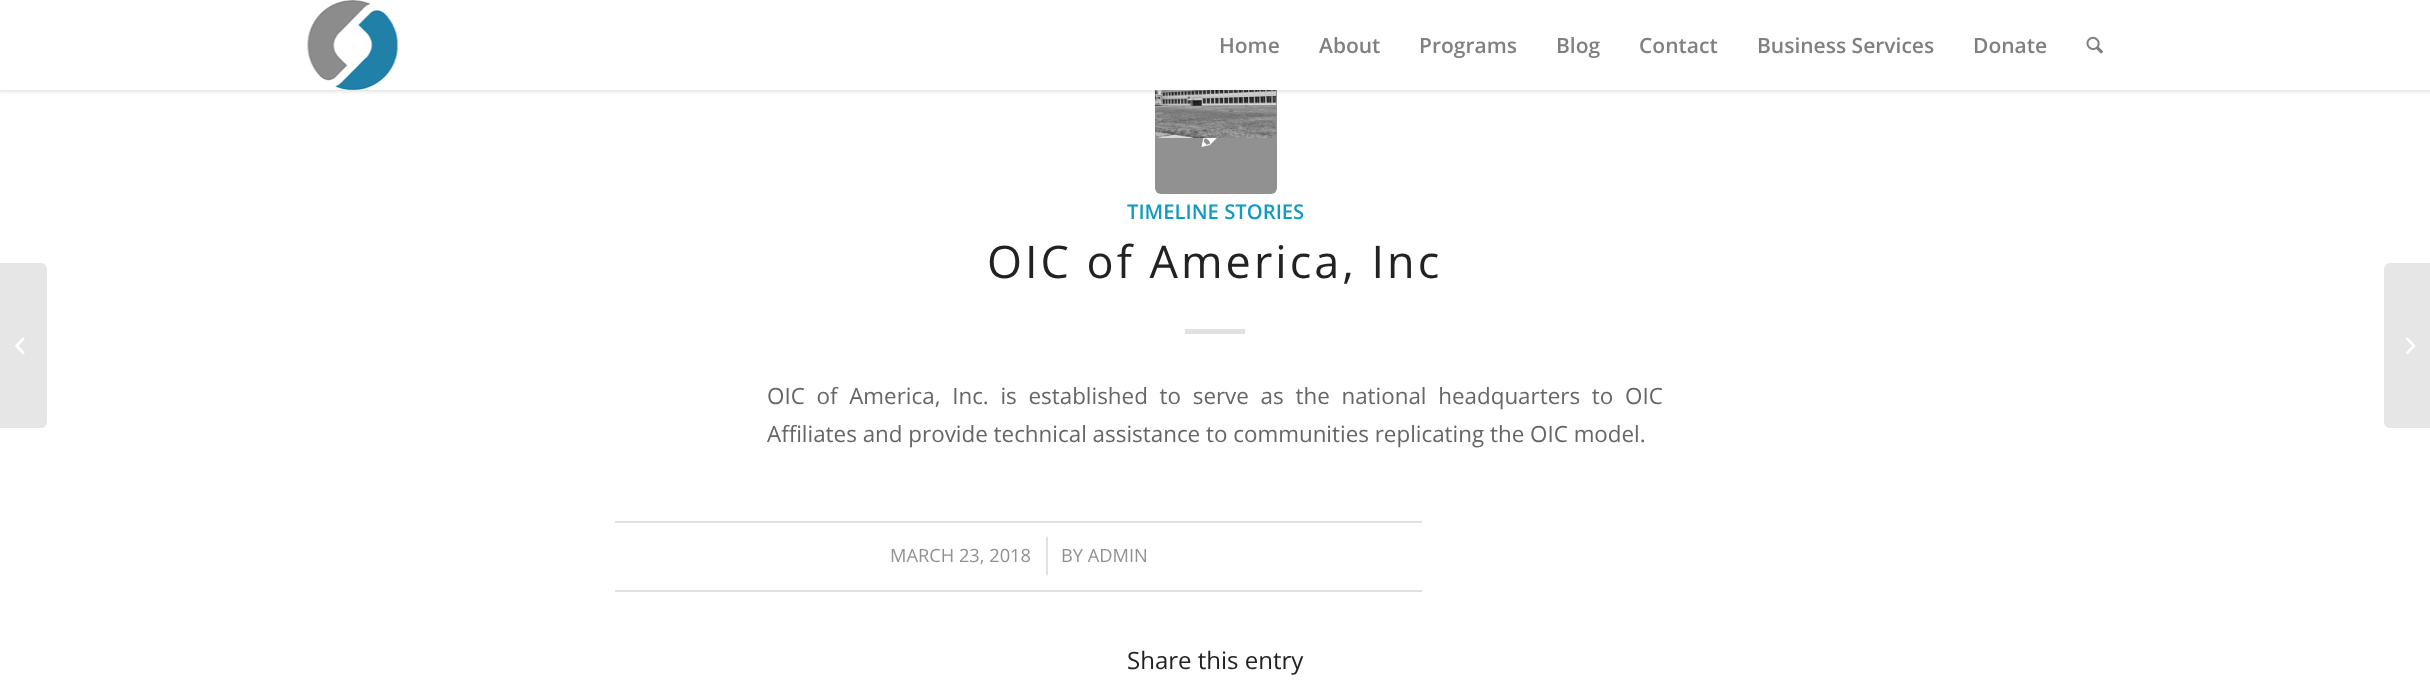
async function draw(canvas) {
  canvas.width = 2430;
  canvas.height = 690;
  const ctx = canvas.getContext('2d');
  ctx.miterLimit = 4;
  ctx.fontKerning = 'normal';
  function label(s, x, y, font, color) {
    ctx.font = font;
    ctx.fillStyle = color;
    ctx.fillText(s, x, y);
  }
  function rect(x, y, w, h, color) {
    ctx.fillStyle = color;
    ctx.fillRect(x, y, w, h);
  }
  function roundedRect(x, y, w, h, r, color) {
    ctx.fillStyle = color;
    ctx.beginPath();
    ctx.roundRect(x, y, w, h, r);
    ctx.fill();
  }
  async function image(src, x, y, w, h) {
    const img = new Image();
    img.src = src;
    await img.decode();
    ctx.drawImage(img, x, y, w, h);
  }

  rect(0, 0, 2430, 690, '#fff');
  roundedRect(1155, 72, 122, 122, 6, '#919191');
  await image('assets/img4.png', 1155, 90, 122, 48);
  ctx.fillStyle = '#0000001a';
  ctx.filter = 'blur(1.5px)';
  ctx.beginPath();
  ctx.rect(-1, -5, 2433, 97);
  ctx.fill();
  ctx.filter = 'none';
  rect(0, 0, 2430, 90, '#fff');
  await image('assets/img1.png', 307, 0, 91, 90);
  label('Home', 1219, 53, '600 21px Open Sans', '#808080');
  label('About', 1319, 53, '600 21px Open Sans', '#808080');
  label('Programs', 1419, 53, '600 21px Open Sans', '#808080');
  label('Blog', 1556, 53, '600 21px Open Sans', '#808080');
  label('Contact', 1639, 53, '600 21px Open Sans', '#808080');
  label('Business Services', 1757, 53, '600 21px Open Sans', '#808080');
  label('Donate', 1973, 53, '600 21px Open Sans', '#808080');
  await image('assets/img2.png', 2086, 36, 17, 18);
  ctx.fillStyle = '#e6e6e6';
  ctx.beginPath();
  ctx.roundRect(0, 263, 47, 165, [0, 6, 6, 0]);
  ctx.fill();
  await image('assets/img3.png', 15, 337, 10, 17);
  await image('assets/img5.png', 1201, 138, 16, 9);
  label('TIMELINE STORIES', 1127, 219, '600 20.25px Open Sans', '#109bc5');
  ctx.letterSpacing = '3px';
  label('OIC of America, Inc', 987, 278, '45px Open Sans', '#222');
  rect(1185, 329, 60, 5, '#e1e1e1');
  ctx.letterSpacing = '0px';
  ctx.wordSpacing = '5.9px';
  label('OIC of America, Inc. is established to serve as the national headquarters to OIC', 767, 404, '22.4px Open Sans', '#666');
  ctx.wordSpacing = '0px';
  label('Affiliates and provide technical assistance to communities replicating the OIC model.', 767, 442, '22.4px Open Sans', '#666');
  rect(615, 521, 807, 2, '#e1e1e1');
  rect(615, 590, 807, 2, '#e1e1e1');
  label('MARCH 23, 2018', 890, 562, '18.25px Open Sans', '#919191');
  rect(1046, 537, 2, 38, '#e1e1e1');
  label('BY ADMIN', 1061, 562, '18.25px Open Sans', '#919191');
  label('Share this entry', 1127, 669, '24px Open Sans', '#222');
  ctx.fillStyle = '#e6e6e6';
  ctx.beginPath();
  ctx.roundRect(2384, 263, 46, 165, [6, 0, 0, 6]);
  ctx.fill();
  await image('assets/img6.png', 2406, 337, 10, 17);
}

draw(document.querySelector('canvas'));
